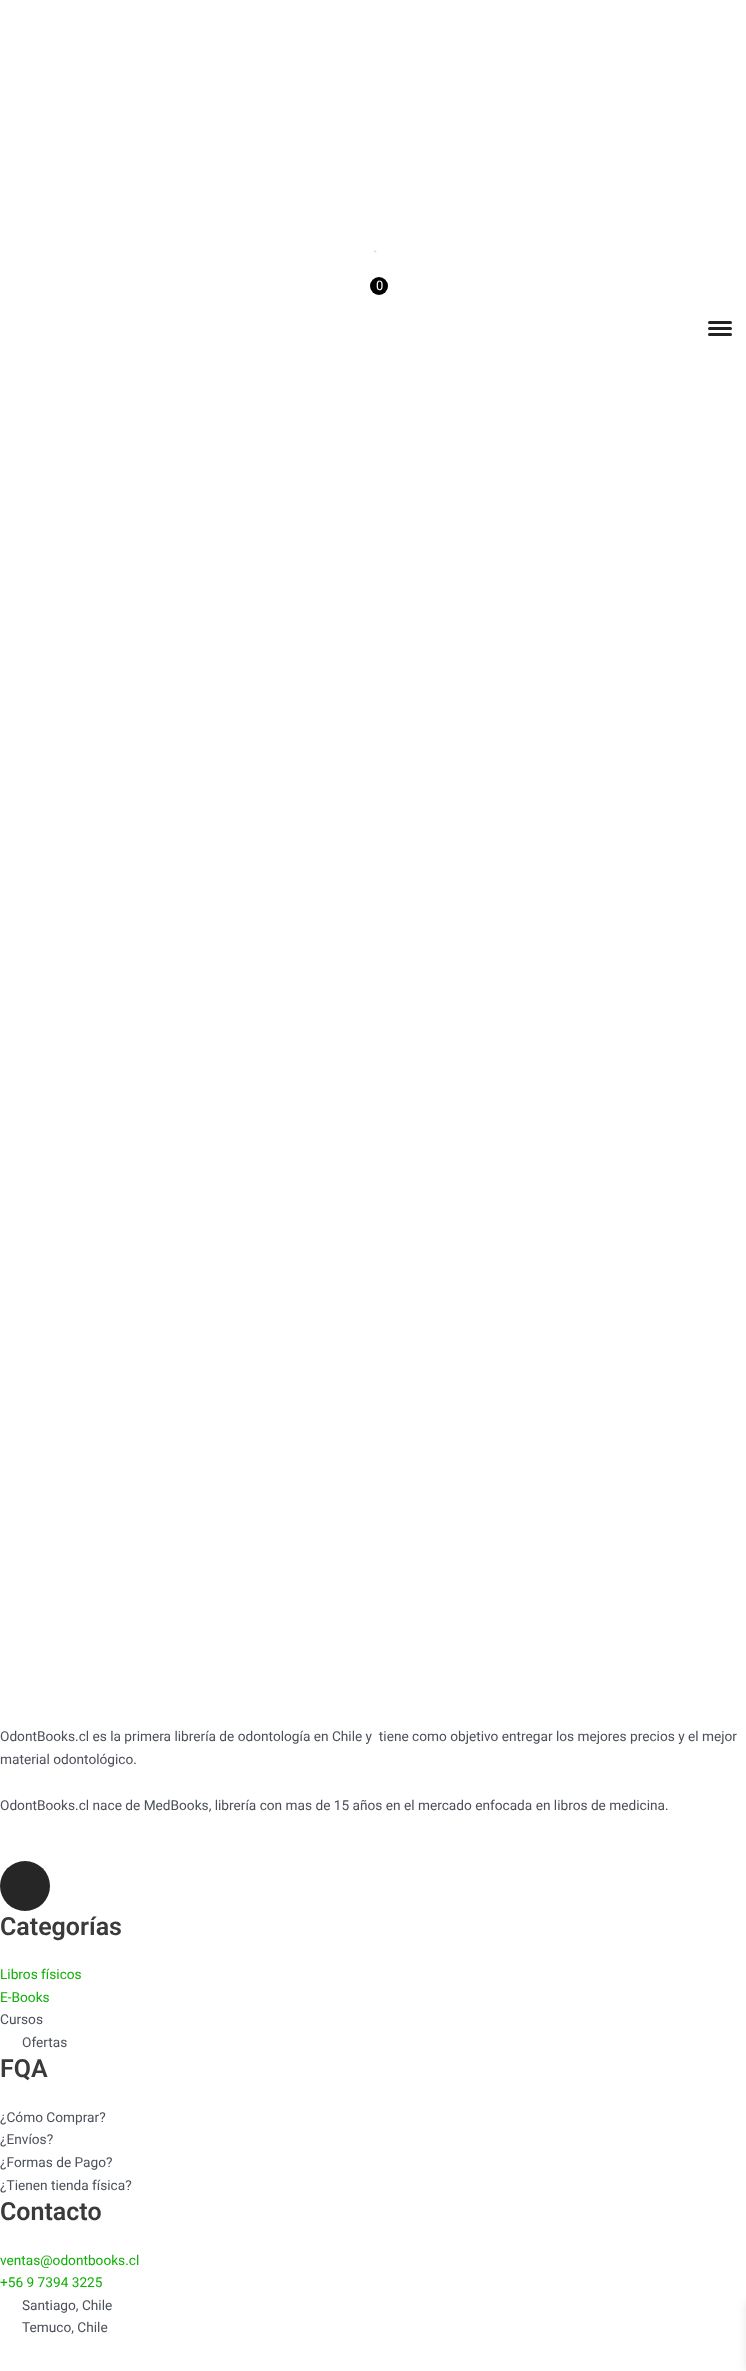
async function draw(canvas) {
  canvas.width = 746;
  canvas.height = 2371;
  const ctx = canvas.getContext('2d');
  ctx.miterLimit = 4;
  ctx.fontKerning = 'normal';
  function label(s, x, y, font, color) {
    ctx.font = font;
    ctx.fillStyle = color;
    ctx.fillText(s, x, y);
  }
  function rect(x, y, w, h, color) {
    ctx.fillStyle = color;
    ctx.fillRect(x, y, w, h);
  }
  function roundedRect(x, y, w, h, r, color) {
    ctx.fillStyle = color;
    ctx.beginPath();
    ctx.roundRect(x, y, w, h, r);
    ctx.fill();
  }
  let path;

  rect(0, 0, 746, 2371, '#fff');
  path = new Path2D('M375 251.5H375.5');
  ctx.strokeStyle = '#ddd';
  ctx.lineWidth = 1.9;
  ctx.lineCap = 'round';
  ctx.stroke(path);
  ctx.fillStyle = '#000';
  ctx.beginPath();
  ctx.arc(379, 286, 9, 0, 2 * Math.PI);
  ctx.fill();
  label('0', 376, 290, '13px Roboto', '#fff');
  roundedRect(708, 321, 24, 3, 1.5, '#222');
  roundedRect(708, 327, 24, 3, 1.5, '#222');
  roundedRect(708, 333, 24, 3, 1.5, '#222');
  label('OdontBooks.cl es la primera librería de odontología en Chile y  tiene como objetivo entregar los mejores precios y el mejor', 0, 1741, '13.68px Roboto', '#4b4f58');
  label('material odontológico.', 0, 1764, '13.68px Roboto', '#4b4f58');
  label('OdontBooks.cl nace de MedBooks, librería con mas de 15 años en el mercado enfocada en libros de medicina.', 0, 1810, '13.68px Roboto', '#4b4f58');
  ctx.fillStyle = '#262626';
  ctx.beginPath();
  ctx.arc(25, 1886, 25, 0, 2 * Math.PI);
  ctx.fill();
  label('Categorías', 0, 1935, '600 25px Roboto', '#3a3a3a');
  label('Libros físicos', 0, 1979, '13.68px Roboto', '#11af07');
  label('E-Books', 0, 2002, '13.68px Roboto', '#11af07');
  label('Cursos', 0, 2024, '13.68px Roboto', '#4b4f58');
  label('Ofertas', 22, 2047, '13.68px Roboto', '#4b4f58');
  label('FQA', 0, 2077, '600 25px Roboto', '#3a3a3a');
  label('¿Cómo Comprar?', 0, 2122, '13.68px Roboto', '#4b4f58');
  label('¿Envíos?', 0, 2144, '13.68px Roboto', '#4b4f58');
  label('¿Formas de Pago?', 0, 2167, '13.68px Roboto', '#4b4f58');
  label('¿Tienen tienda física?', 0, 2190, '13.68px Roboto', '#4b4f58');
  label('Contacto', 0, 2220, '600 25px Roboto', '#3a3a3a');
  label('ventas@odontbooks.cl', 0, 2265, '13.68px Roboto', '#11af07');
  label('+56 9 7394 3225', 0, 2287, '13.68px Roboto', '#11af07');
  label('Santiago, Chile', 22, 2310, '13.68px Roboto', '#4b4f58');
  label('Temuco, Chile', 22, 2332, '13.68px Roboto', '#4b4f58');
  ctx.fillStyle = '#0000001a';
  ctx.filter = 'blur(5px)';
  ctx.beginPath();
  ctx.rect(746, 2303, 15, 67);
  ctx.fill();
  ctx.filter = 'none';
}

draw(document.querySelector('canvas'));
